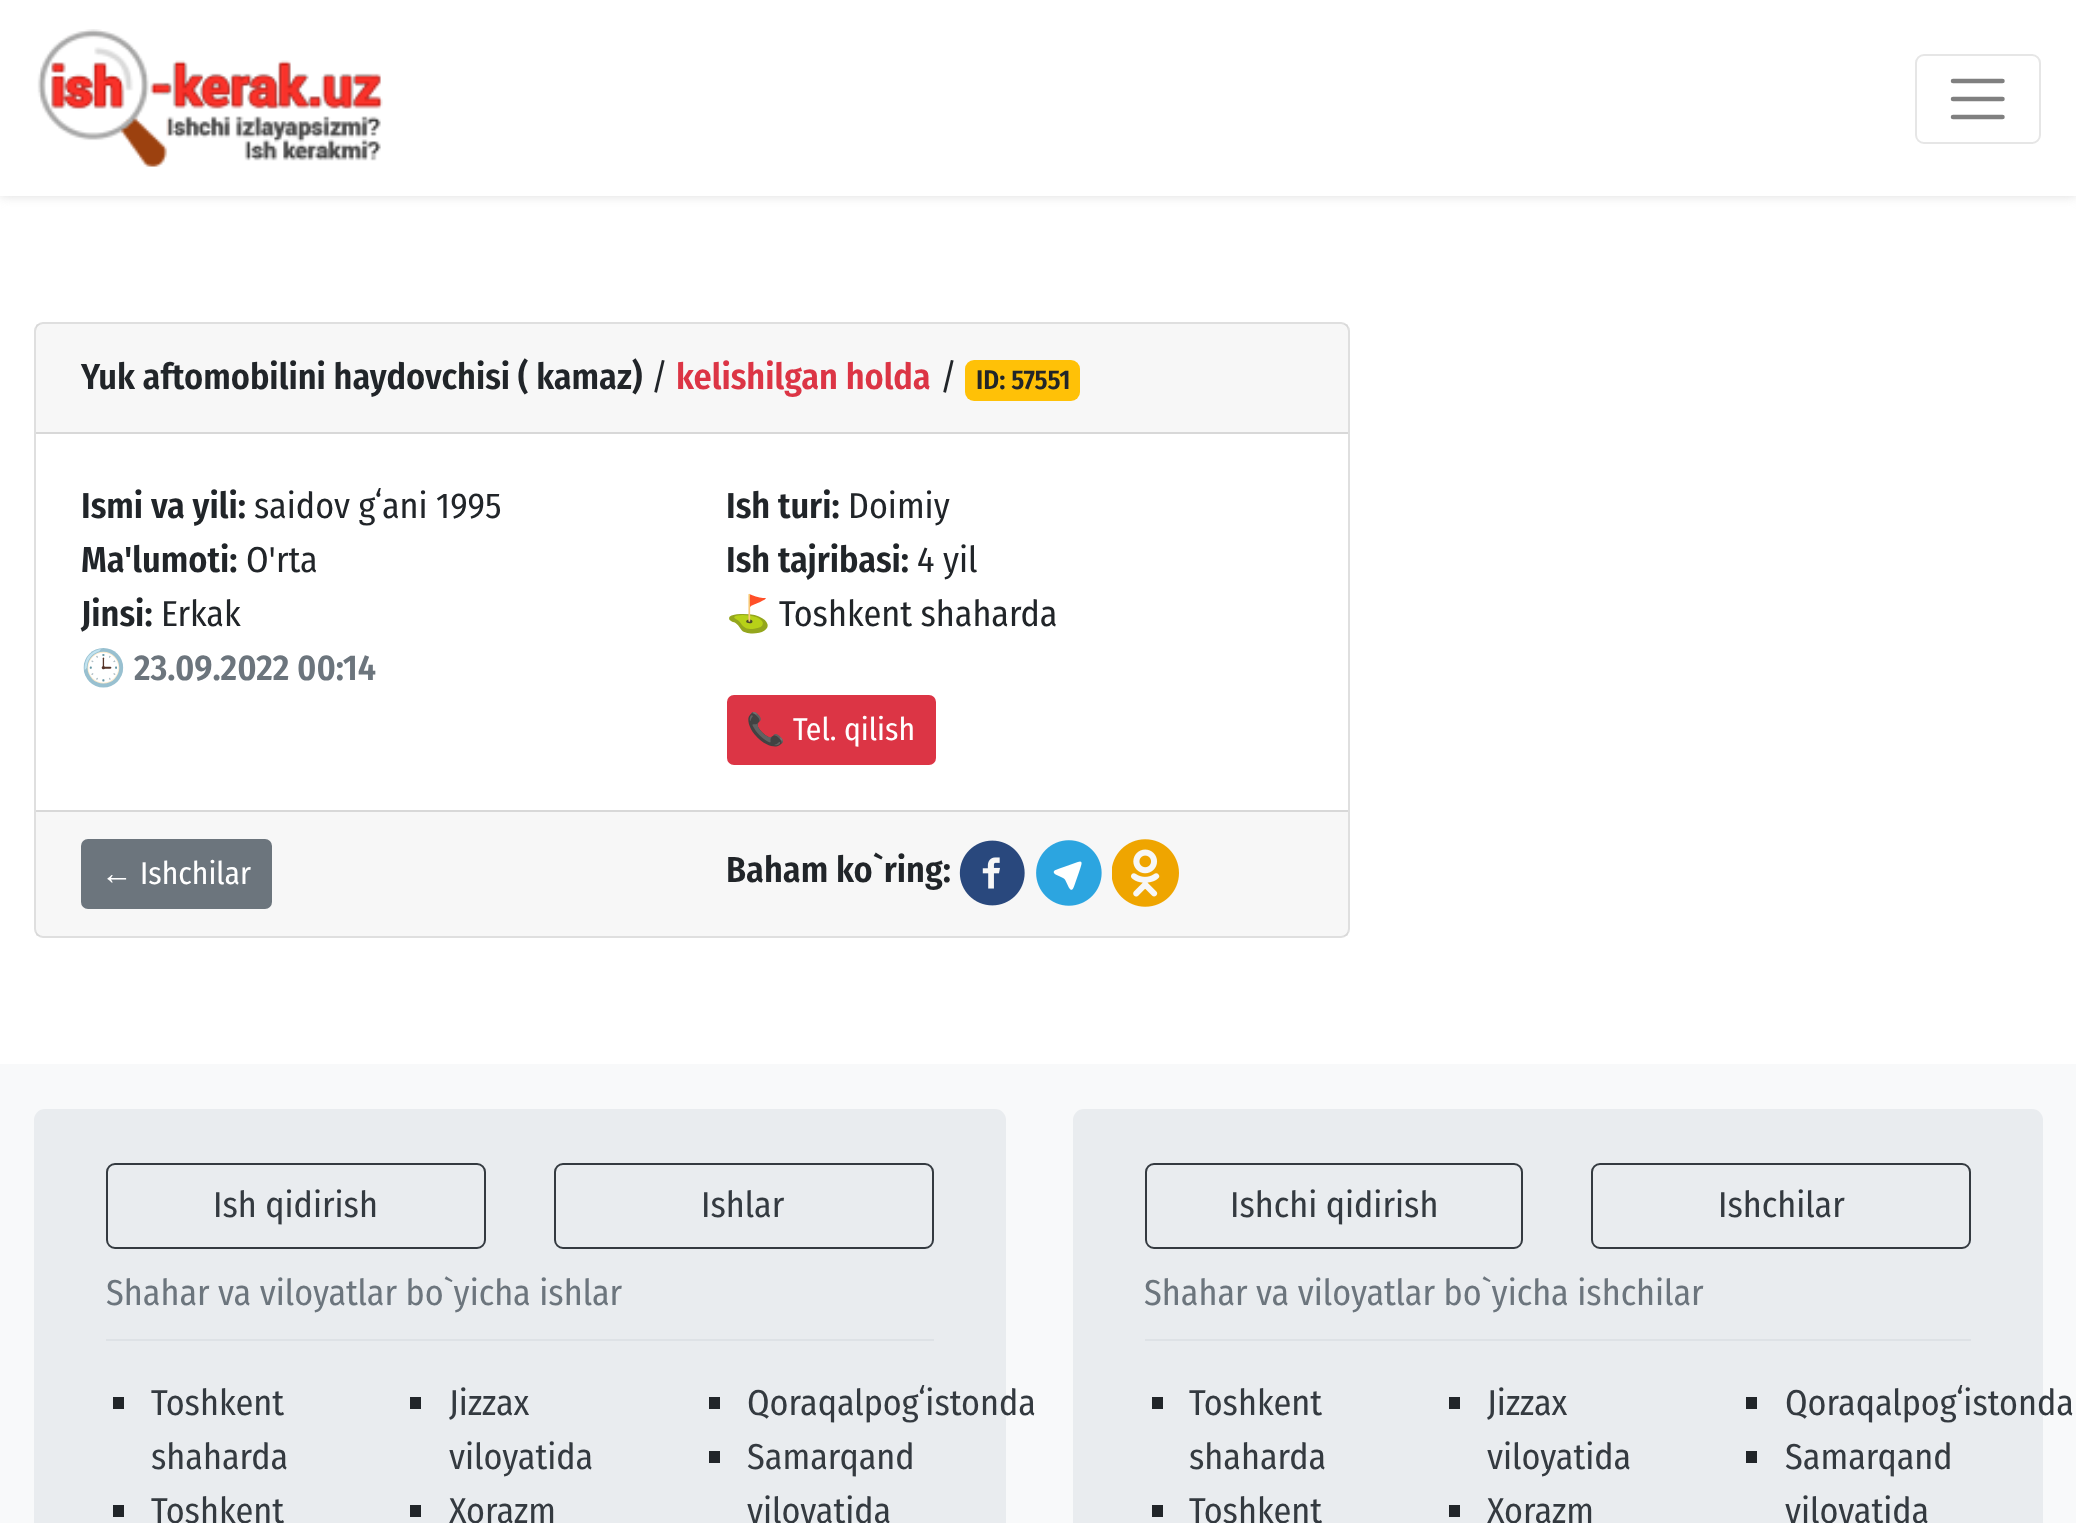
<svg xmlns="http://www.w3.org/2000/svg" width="2076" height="1523">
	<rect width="100%" height="100%" fill="#FFFFFF" />
	<rect x="0" y="0" width="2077" height="196" fill="#DDDDDD" filter="blur(5.5px)" />
	<rect x="0" y="0" width="2076" height="196" fill="#FFFFFF" />
	<image x="37" y="29" width="346" height="138" href="assets/img1.png" />
	<rect x="1916" y="55" width="124" height="88" rx="8" fill="none" stroke="#E6E6E6" stroke-width="2" />
	<path d="M1953 81H2002.5M1953 99H2002.5M1953 117H2002.5" fill="none" stroke="#808080" stroke-width="4.5" stroke-linecap="round" />
	<rect x="35" y="323" width="1314" height="614" rx="8" fill="none" stroke="#DFDFDF" stroke-width="2" />
	<rect x="36" y="324" width="1312" height="108" fill="#000000" fill-opacity="0.03" />
	<rect x="36" y="432" width="1312" height="2" fill="#D8D8D8" />
	<text x="81" y="389" font-family="Fira Sans Condensed" font-size="36" font-weight="600" fill="#212529">Yuk aftomobilini haydovchisi ( kamaz)</text>
	<text x="651" y="389" font-family="Fira Sans Condensed" font-size="36" fill="#212529">/</text>
	<text x="676" y="389" font-family="Fira Sans Condensed" font-size="36" font-weight="600" fill="#DC3545">kelishilgan holda</text>
	<text x="940" y="389" font-family="Fira Sans Condensed" font-size="36" fill="#212529">/</text>
	<rect x="965" y="360" width="115" height="41" rx="9" fill="#FFC107" />
	<text x="976" y="389" font-family="Fira Sans Condensed" font-size="27" font-weight="600" fill="#212529">ID: 57551</text>
	<text x="81" y="518" font-family="Fira Sans Condensed" font-size="36" font-weight="600" fill="#212529">Ismi va yili:</text>
	<text x="254" y="518" font-family="Fira Sans Condensed" font-size="36" fill="#212529">saidov gʻani 1995</text>
	<text x="81" y="572" font-family="Fira Sans Condensed" font-size="36" font-weight="600" fill="#212529">Ma'lumoti:</text>
	<text x="246" y="572" font-family="Fira Sans Condensed" font-size="36" fill="#212529">O'rta</text>
	<text x="81" y="626" font-family="Fira Sans Condensed" font-size="36" font-weight="600" fill="#212529">Jinsi:</text>
	<text x="161" y="626" font-family="Fira Sans Condensed" font-size="36" fill="#212529">Erkak</text>
	<text x="81" y="680" font-family="Noto Color Emoji" font-size="36" font-weight="700" fill="#6C757D">🕒</text>
	<text x="134" y="680" font-family="Fira Sans Condensed" font-size="36" font-weight="600" fill="#6C757D">23.09.2022 00:14</text>
	<text x="726" y="518" font-family="Fira Sans Condensed" font-size="36" font-weight="600" fill="#212529">Ish turi:</text>
	<text x="848" y="518" font-family="Fira Sans Condensed" font-size="36" fill="#212529">Doimiy</text>
	<text x="726" y="572" font-family="Fira Sans Condensed" font-size="36" font-weight="600" fill="#212529">Ish tajribasi:</text>
	<text x="917" y="572" font-family="Fira Sans Condensed" font-size="36" fill="#212529">4 yil</text>
	<text x="726" y="626" font-family="Noto Color Emoji" font-size="36" font-weight="700" fill="#212529">⛳</text>
	<text x="779" y="626" font-family="Fira Sans Condensed" font-size="36" fill="#212529">Toshkent shaharda</text>
	<rect x="728" y="696" width="207" height="68" rx="6" fill="#DC3545" stroke="#DC3545" stroke-width="2" />
	<text x="746" y="740" font-family="Noto Color Emoji" font-size="31.5" fill="#FFFFFF">📞</text>
	<text x="793" y="740" font-family="Fira Sans Condensed" font-size="31.5" fill="#FFFFFF">Tel. qilish</text>
	<rect x="36" y="812" width="1312" height="124" fill="#000000" fill-opacity="0.03" />
	<rect x="36" y="810" width="1312" height="2" fill="#D8D8D8" />
	<rect x="82" y="840" width="189" height="68" rx="6" fill="#6C757D" stroke="#6C757D" stroke-width="2" />
	<text x="101" y="884" font-family="Liberation Sans" font-size="31.5" fill="#FFFFFF">←</text>
	<text x="140" y="884" font-family="Fira Sans Condensed" font-size="31.5" fill="#FFFFFF">Ishchilar</text>
	<text x="726" y="882" font-family="Fira Sans Condensed" font-size="36" font-weight="600" fill="#212529">Baham ko`ring:</text>
	<image x="959" y="840" width="66" height="66" href="assets/img2.png" />
	<image x="1036" y="840" width="66" height="66" href="assets/img3.png" />
	<image x="1112" y="839" width="67" height="68" href="assets/img4.png" />
	<rect x="0" y="1064" width="2076" height="459" fill="#F8F9FA" />
	<rect x="34" y="1109" width="972" height="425" rx="11" fill="#E9ECEF" />
	<rect x="107" y="1164" width="378" height="84" rx="8" fill="none" stroke="#343A40" stroke-width="2" />
	<text x="213" y="1217" font-family="Fira Sans Condensed" font-size="36" fill="#343A40">Ish qidirish</text>
	<rect x="555" y="1164" width="378" height="84" rx="8" fill="none" stroke="#343A40" stroke-width="2" />
	<text x="701" y="1217" font-family="Fira Sans Condensed" font-size="36" fill="#343A40">Ishlar</text>
	<rect x="106" y="1339" width="828" height="2" fill="#DEE2E6" />
	<text x="106" y="1305" font-family="Fira Sans Condensed" font-size="36" fill="#6C757D">Shahar va viloyatlar bo`yicha ishlar</text>
	<rect x="113" y="1397" width="11" height="12" fill="#212529" />
	<g font-family="Fira Sans Condensed" font-size="36" fill="#343A40">
		<text x="151" y="1415">Toshkent</text>
		<text x="151" y="1469">shaharda</text>
	</g>
	<rect x="113" y="1505" width="11" height="12" fill="#212529" />
	<text x="151" y="1523" font-family="Fira Sans Condensed" font-size="36" fill="#343A40">Toshkent</text>
	<rect x="410" y="1397" width="11" height="12" fill="#212529" />
	<g font-family="Fira Sans Condensed" font-size="36" fill="#343A40">
		<text x="449" y="1415">Jizzax</text>
		<text x="449" y="1469">viloyatida</text>
	</g>
	<rect x="410" y="1505" width="11" height="12" fill="#212529" />
	<text x="449" y="1523" font-family="Fira Sans Condensed" font-size="36" fill="#343A40">Xorazm</text>
	<rect x="709" y="1397" width="11" height="12" fill="#212529" />
	<text x="747" y="1415" font-family="Fira Sans Condensed" font-size="36" fill="#343A40">Qoraqalpogʻistonda</text>
	<rect x="709" y="1451" width="11" height="12" fill="#212529" />
	<g font-family="Fira Sans Condensed" font-size="36" fill="#343A40">
		<text x="747" y="1469">Samarqand</text>
		<text x="747" y="1523">viloyatida</text>
	</g>
	<rect x="1073" y="1109" width="970" height="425" rx="11" fill="#E9ECEF" />
	<rect x="1146" y="1164" width="376" height="84" rx="8" fill="none" stroke="#343A40" stroke-width="2" />
	<text x="1230" y="1217" font-family="Fira Sans Condensed" font-size="36" fill="#343A40">Ishchi qidirish</text>
	<rect x="1592" y="1164" width="378" height="84" rx="8" fill="none" stroke="#343A40" stroke-width="2" />
	<text x="1718" y="1217" font-family="Fira Sans Condensed" font-size="36" fill="#343A40">Ishchilar</text>
	<rect x="1145" y="1339" width="826" height="2" fill="#DEE2E6" />
	<text x="1144" y="1305" font-family="Fira Sans Condensed" font-size="36" fill="#6C757D">Shahar va viloyatlar bo`yicha ishchilar</text>
	<rect x="1152" y="1397" width="11" height="12" fill="#212529" />
	<g font-family="Fira Sans Condensed" font-size="36" fill="#343A40">
		<text x="1189" y="1415">Toshkent</text>
		<text x="1189" y="1469">shaharda</text>
	</g>
	<rect x="1152" y="1505" width="11" height="12" fill="#212529" />
	<text x="1189" y="1523" font-family="Fira Sans Condensed" font-size="36" fill="#343A40">Toshkent</text>
	<rect x="1449" y="1397" width="11" height="12" fill="#212529" />
	<g font-family="Fira Sans Condensed" font-size="36" fill="#343A40">
		<text x="1487" y="1415">Jizzax</text>
		<text x="1487" y="1469">viloyatida</text>
	</g>
	<rect x="1449" y="1505" width="11" height="12" fill="#212529" />
	<text x="1487" y="1523" font-family="Fira Sans Condensed" font-size="36" fill="#343A40">Xorazm</text>
	<rect x="1746" y="1397" width="11" height="12" fill="#212529" />
	<text x="1785" y="1415" font-family="Fira Sans Condensed" font-size="36" fill="#343A40">Qoraqalpogʻistonda</text>
	<rect x="1746" y="1451" width="11" height="12" fill="#212529" />
	<g font-family="Fira Sans Condensed" font-size="36" fill="#343A40">
		<text x="1785" y="1469">Samarqand</text>
		<text x="1785" y="1523">viloyatida</text>
	</g>
</svg>
